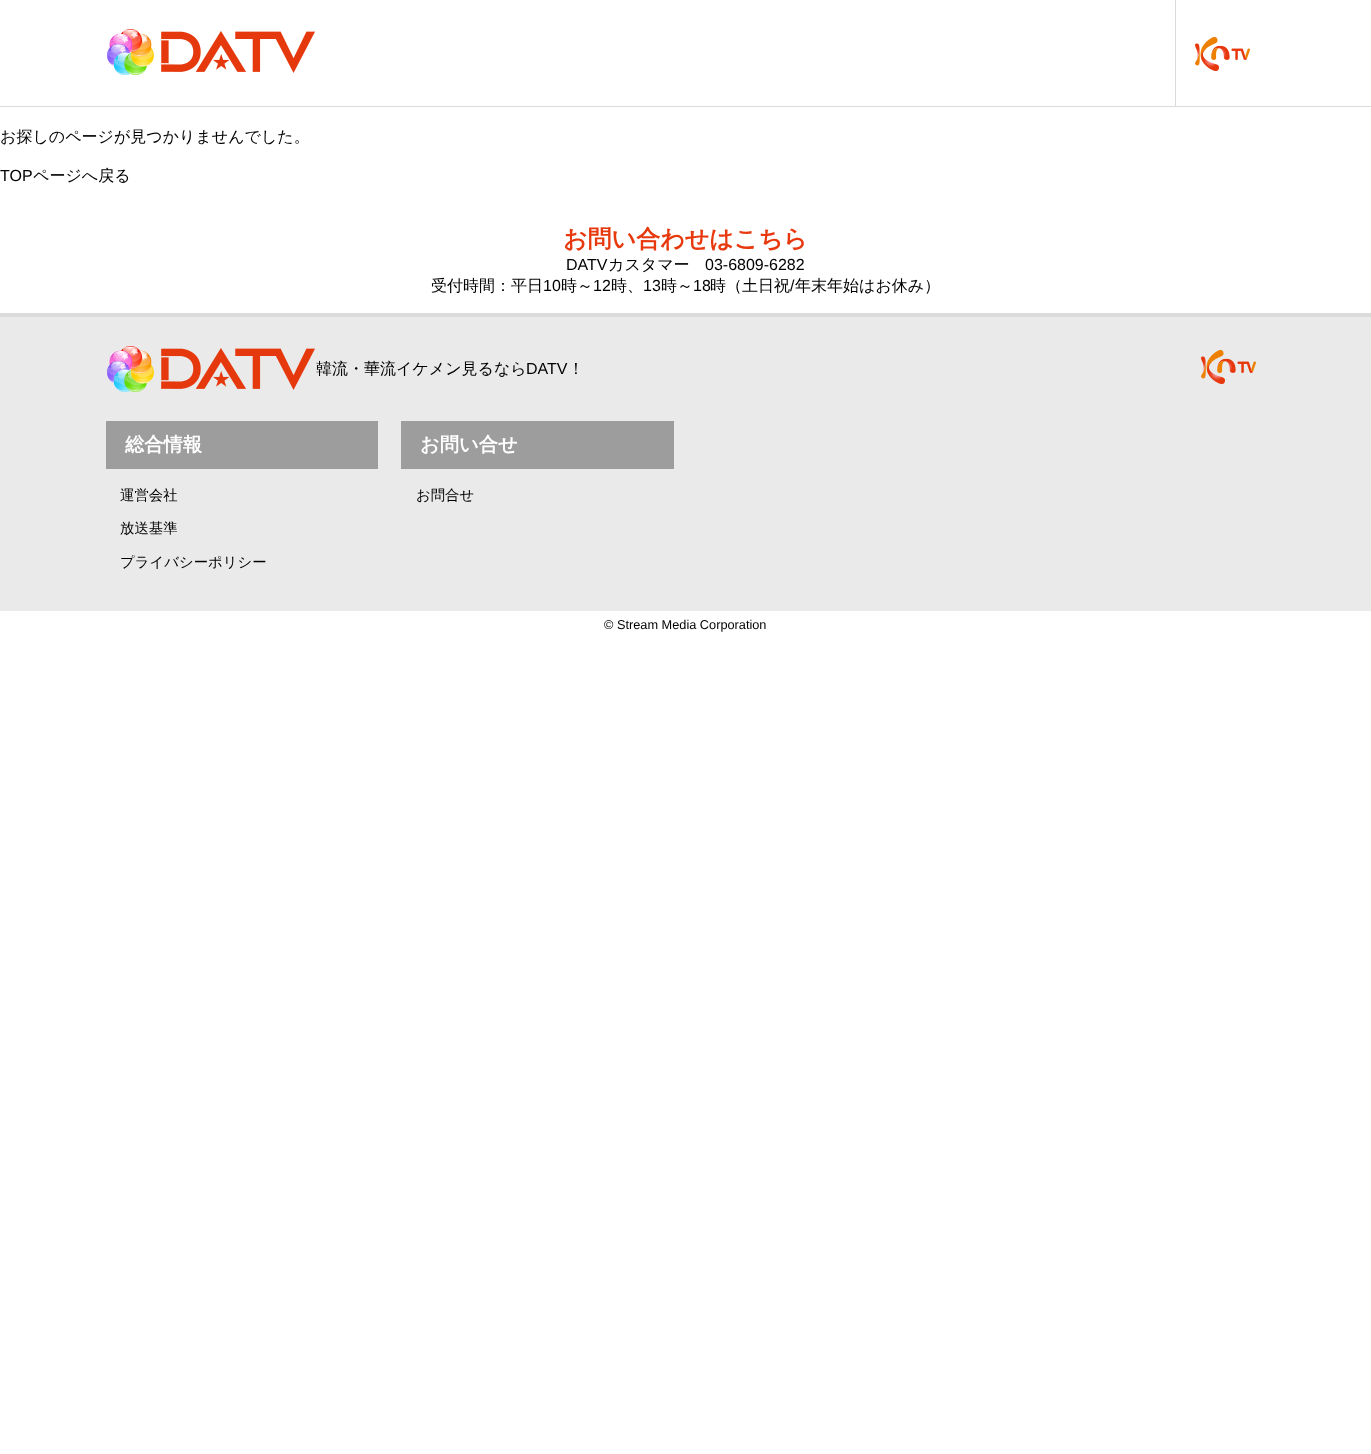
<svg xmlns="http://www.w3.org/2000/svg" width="1371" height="1454">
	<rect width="100%" height="100%" fill="#FFFFFF" />
	<rect x="0" y="106" width="1371" height="1" fill="#DBDBDB" />
	<image x="107" y="29" width="208" height="46" href="assets/img1.png" />
	<rect x="1175" y="0" width="1" height="106" fill="#DBDBDB" />
	<image x="1195" y="37" width="55" height="34" href="assets/img2.png" />
	<text x="0" y="142" font-family="WenQuanYi Zen Hei" font-size="16" font-weight="500" fill="#000000">お探しのページが見つかりませんでした。</text>
	<text x="0" y="181" font-family="Liberation Sans" font-size="16" fill="#000000">TOP</text>
	<text x="33" y="181" font-family="WenQuanYi Zen Hei" font-size="16" font-weight="500" fill="#000000">ページへ戻る</text>
	<text x="563" y="247" font-family="WenQuanYi Zen Hei" font-size="24" font-weight="700" fill="#E8390E">お問い合わせはこちら</text>
	<text x="566" y="270" font-family="Liberation Sans" font-size="16" fill="#000000">DATV</text>
	<text x="608" y="270" font-family="WenQuanYi Zen Hei" font-size="16" font-weight="500" fill="#000000">カスタマー</text>
	<text x="705" y="270" font-family="Liberation Sans" font-size="16" fill="#000000">03-6809-6282</text>
	<text x="431" y="291" font-family="WenQuanYi Zen Hei" font-size="16" font-weight="500" fill="#000000">受付時間：平日</text>
	<text x="543" y="291" font-family="Liberation Sans" font-size="16" fill="#000000">10</text>
	<text x="561" y="291" font-family="WenQuanYi Zen Hei" font-size="16" font-weight="500" fill="#000000">時～</text>
	<text x="593" y="291" font-family="Liberation Sans" font-size="16" fill="#000000">12</text>
	<text x="611" y="291" font-family="WenQuanYi Zen Hei" font-size="16" font-weight="500" fill="#000000">時、</text>
	<text x="643" y="291" font-family="Liberation Sans" font-size="16" fill="#000000">13</text>
	<text x="661" y="291" font-family="WenQuanYi Zen Hei" font-size="16" font-weight="500" fill="#000000">時～</text>
	<text x="693" y="291" font-family="Liberation Sans" font-size="16" fill="#000000">18</text>
	<text x="710" y="291" font-family="WenQuanYi Zen Hei" font-size="16" font-weight="500" fill="#000000">時（土日祝</text>
	<text x="790" y="291" font-family="Liberation Sans" font-size="16" fill="#000000">/</text>
	<text x="795" y="291" font-family="WenQuanYi Zen Hei" font-size="16" font-weight="500" fill="#000000">年末年始はお休み）</text>
	<rect x="0" y="313" width="1371" height="4" fill="#DBDBDB" />
	<rect x="0" y="317" width="1371" height="294" fill="#EAEAEA" />
	<image x="107" y="346" width="208" height="46" href="assets/img3.png" />
	<text x="316" y="374" font-family="WenQuanYi Zen Hei" font-size="16" font-weight="500" fill="#000000">韓流・華流イケメン見るなら</text>
	<text x="526" y="374" font-family="Liberation Sans" font-size="16" fill="#000000">DATV</text>
	<text x="568" y="374" font-family="WenQuanYi Zen Hei" font-size="16" font-weight="500" fill="#000000">！</text>
	<image x="1201" y="350" width="55" height="34" href="assets/img4.png" />
	<rect x="106" y="421" width="272" height="48" fill="#9D9D9D" />
	<text x="125" y="451" font-family="WenQuanYi Zen Hei" font-size="19.25" font-weight="700" fill="#FFFFFF">総合情報</text>
	<g font-family="WenQuanYi Zen Hei" font-size="14.4" font-weight="500" fill="#000000">
		<text x="120" y="500">運営会社</text>
		<text x="120" y="533">放送基準</text>
		<text x="120" y="567">プライバシーポリシー</text>
	</g>
	<rect x="401" y="421" width="273" height="48" fill="#9D9D9D" />
	<text x="420" y="451" font-family="WenQuanYi Zen Hei" font-size="19.25" font-weight="700" fill="#FFFFFF">お問い合せ</text>
	<text x="416" y="500" font-family="WenQuanYi Zen Hei" font-size="14.4" font-weight="500" fill="#000000">お問合せ</text>
	<text x="604" y="629" font-family="Liberation Sans" font-size="12.75" fill="#000000">© Stream Media Corporation</text>
</svg>
